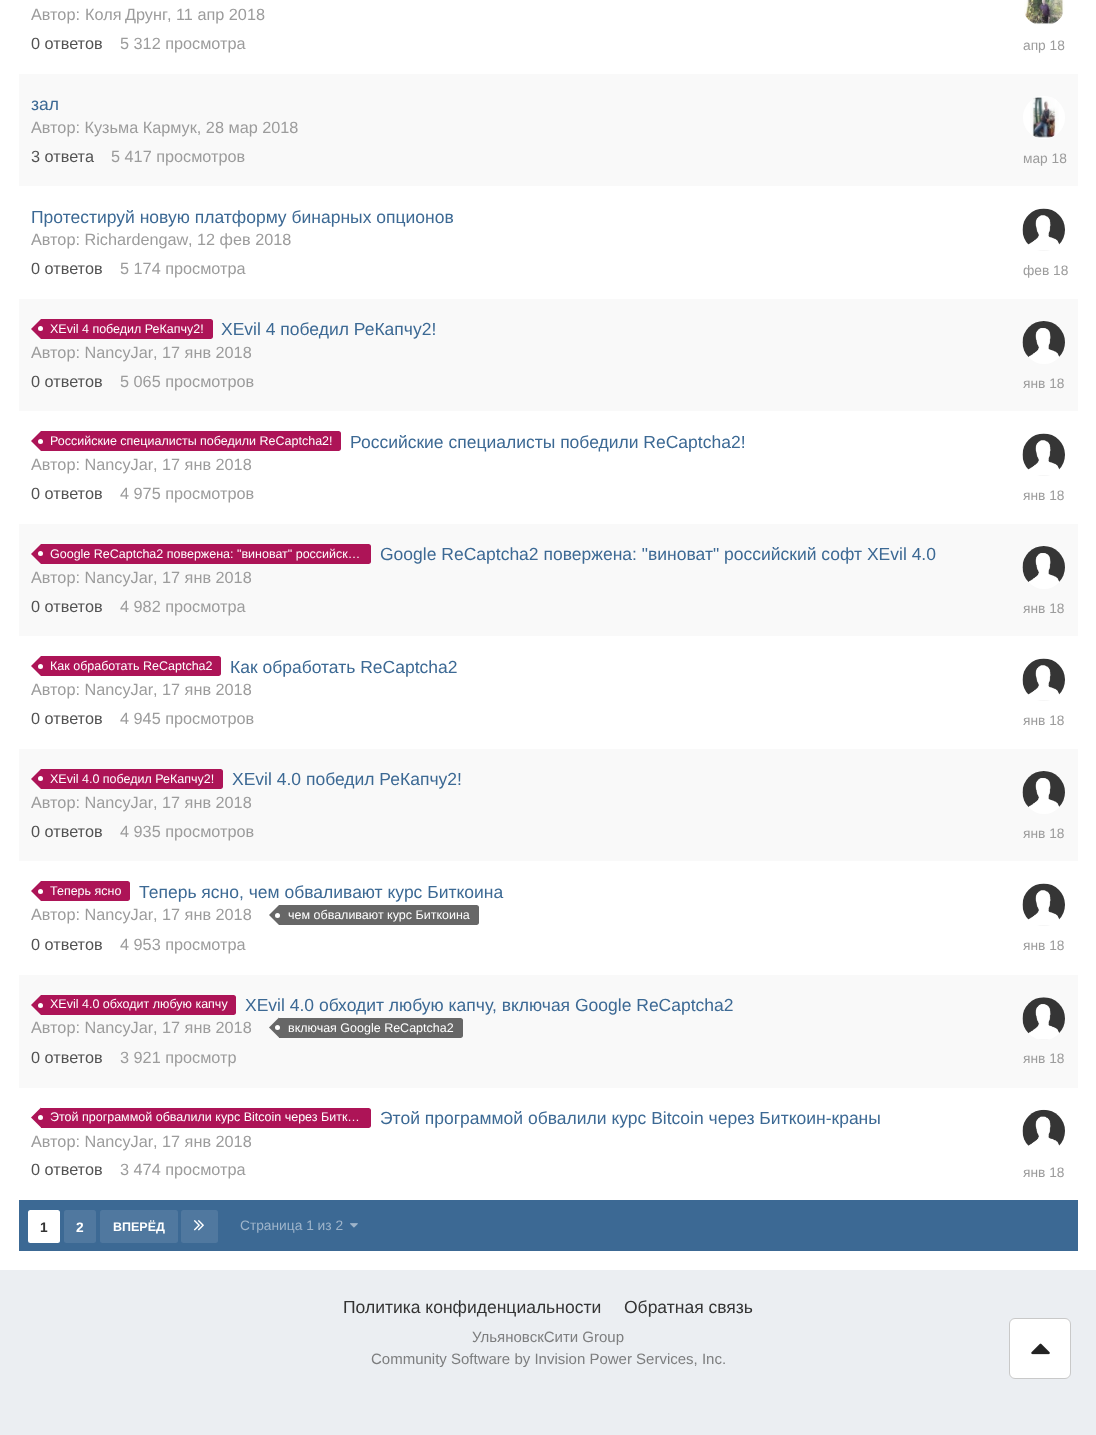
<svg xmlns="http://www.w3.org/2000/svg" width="1096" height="1435">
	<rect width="100%" height="100%" fill="#EBEEF2" />
	<rect x="0" y="0" width="1096" height="1270" fill="#FFFFFF" />
	<g font-family="Liberation Sans" font-size="16.25" fill="#9C9C9C">
		<text x="31" y="20">Автор:</text>
		<text x="85" y="20" word-spacing="-1">Коля Друнг</text>
		<text x="167" y="20">, 11 апр 2018</text>
	</g>
	<text x="31" y="49" font-family="Liberation Sans" font-size="16.25" fill="#525252">0 ответов</text>
	<text x="120" y="49" font-family="Liberation Sans" font-size="16.25" fill="#9C9C9C">5 312 просмотра</text>
	<image x="1024" y="0" width="41" height="25" href="assets/img1.png" />
	<text x="1023" y="50" font-family="Liberation Sans" font-size="13.75" fill="#9C9C9C">апр 18</text>
	<rect x="19" y="74" width="1059" height="112" fill="#F9F9F9" />
	<text x="31" y="110" font-family="Liberation Sans" font-size="17.5" fill="#3C6994">зал</text>
	<text x="31" y="133" font-family="Liberation Sans" font-size="16.25" fill="#9C9C9C">Автор: Кузьма Кармук, 28 мар 2018</text>
	<text x="31" y="162" font-family="Liberation Sans" font-size="16.25" fill="#525252">3 ответа</text>
	<text x="111" y="162" font-family="Liberation Sans" font-size="16.25" fill="#9C9C9C">5 417 просмотров</text>
	<rect x="1023" y="96" width="42" height="43" rx="21" fill="#FFFFFF" />
	<image x="1030" y="97" width="29" height="41" href="assets/img2.png" />
	<text x="1023" y="163" font-family="Liberation Sans" font-size="13.75" fill="#9C9C9C">мар 18</text>
	<text x="31" y="223" font-family="Liberation Sans" font-size="17.5" fill="#3C6994">Протестируй новую платформу бинарных опционов</text>
	<g font-family="Liberation Sans" font-size="16.25" fill="#9C9C9C">
		<text x="31" y="245">Автор: Richardengaw</text>
		<text x="188" y="245">, 12 фев 2018</text>
	</g>
	<text x="31" y="274" font-family="Liberation Sans" font-size="16.25" fill="#525252">0 ответов</text>
	<text x="120" y="274" font-family="Liberation Sans" font-size="16.25" fill="#9C9C9C">5 174 просмотра</text>
	<image x="1022" y="208" width="43" height="43" href="assets/img3.png" />
	<text x="1023" y="275" font-family="Liberation Sans" font-size="13.75" fill="#9C9C9C">фев 18</text>
	<rect x="19" y="299" width="1059" height="112" fill="#F9F9F9" />
	<path d="M41 319H210.5C212 319 213 320 213 321.5V336.5C213 338 212 339 210.5 339H41Z" fill="#AD1457" />
	<path d="M41 319V339L31 329Z" fill="#AD1457" />
	<text x="50" y="333" font-family="Liberation Sans" font-size="12.5" fill="#FFFFFF">XEvil 4 победил РеКапчу2!</text>
	<circle cx="40.5" cy="328.5" r="2.5" fill="#FFFFFF" />
	<text x="221" y="335" font-family="Liberation Sans" font-size="17.5" fill="#3C6994">XEvil 4 победил РеКапчу2!</text>
	<g font-family="Liberation Sans" font-size="16.25" fill="#9C9C9C">
		<text x="31" y="358">Автор: NancyJar</text>
		<text x="153" y="358">, 17 янв 2018</text>
	</g>
	<text x="31" y="387" font-family="Liberation Sans" font-size="16.25" fill="#525252">0 ответов</text>
	<text x="120" y="387" font-family="Liberation Sans" font-size="16.25" fill="#9C9C9C">5 065 просмотров</text>
	<rect x="1023" y="321" width="42" height="43" rx="21" fill="#FFFFFF" />
	<image x="1022" y="321" width="43" height="36" href="assets/img4.png" />
	<text x="1023" y="388" font-family="Liberation Sans" font-size="13.75" fill="#9C9C9C">янв 18</text>
	<path d="M41 431H338.5C340 431 341 432 341 433.5V448.5C341 450 340 451 338.5 451H41Z" fill="#AD1457" />
	<path d="M41 431V451L31 441Z" fill="#AD1457" />
	<text x="50" y="445" font-family="Liberation Sans" font-size="12.5" fill="#FFFFFF">Российские специалисты победили ReCaptcha2!</text>
	<circle cx="40.5" cy="441.5" r="2.5" fill="#FFFFFF" />
	<text x="350" y="448" font-family="Liberation Sans" font-size="17.5" fill="#3C6994">Российские специалисты победили ReCaptcha2!</text>
	<g font-family="Liberation Sans" font-size="16.25" fill="#9C9C9C">
		<text x="31" y="470">Автор: NancyJar</text>
		<text x="153" y="470">, 17 янв 2018</text>
	</g>
	<text x="31" y="499" font-family="Liberation Sans" font-size="16.25" fill="#525252">0 ответов</text>
	<text x="120" y="499" font-family="Liberation Sans" font-size="16.25" fill="#9C9C9C">4 975 просмотров</text>
	<image x="1022" y="433" width="43" height="43" href="assets/img5.png" />
	<text x="1023" y="500" font-family="Liberation Sans" font-size="13.75" fill="#9C9C9C">янв 18</text>
	<rect x="19" y="524" width="1059" height="112" fill="#F9F9F9" />
	<path d="M41 544H368.5C370 544 371 545 371 546.5V561.5C371 563 370 564 368.5 564H41Z" fill="#AD1457" />
	<path d="M41 544V564L31 554Z" fill="#AD1457" />
	<text x="50" y="558" font-family="Liberation Sans" font-size="12.5" fill="#FFFFFF">Google ReCaptcha2 повержена: "виноват" российск…</text>
	<circle cx="40.5" cy="553.5" r="2.5" fill="#FFFFFF" />
	<text x="380" y="560" font-family="Liberation Sans" font-size="17.5" fill="#3C6994">Google ReCaptcha2 повержена: "виноват" российский софт XEvil 4.0</text>
	<g font-family="Liberation Sans" font-size="16.25" fill="#9C9C9C">
		<text x="31" y="583">Автор: NancyJar</text>
		<text x="153" y="583">, 17 янв 2018</text>
	</g>
	<text x="31" y="612" font-family="Liberation Sans" font-size="16.25" fill="#525252">0 ответов</text>
	<text x="120" y="612" font-family="Liberation Sans" font-size="16.25" fill="#9C9C9C">4 982 просмотра</text>
	<rect x="1023" y="546" width="42" height="43" rx="21" fill="#FFFFFF" />
	<image x="1022" y="546" width="43" height="36" href="assets/img4.png" />
	<text x="1023" y="613" font-family="Liberation Sans" font-size="13.75" fill="#9C9C9C">янв 18</text>
	<path d="M41 656H218.5C220 656 221 657 221 658.5V673.5C221 675 220 676 218.5 676H41Z" fill="#AD1457" />
	<path d="M41 656V676L31 666Z" fill="#AD1457" />
	<text x="50" y="670" font-family="Liberation Sans" font-size="12.5" fill="#FFFFFF">Как обработать ReCaptcha2</text>
	<circle cx="40.5" cy="666.5" r="2.5" fill="#FFFFFF" />
	<text x="230" y="673" font-family="Liberation Sans" font-size="17.5" fill="#3C6994">Как обработать ReCaptcha2</text>
	<g font-family="Liberation Sans" font-size="16.25" fill="#9C9C9C">
		<text x="31" y="695">Автор: NancyJar</text>
		<text x="153" y="695">, 17 янв 2018</text>
	</g>
	<text x="31" y="724" font-family="Liberation Sans" font-size="16.25" fill="#525252">0 ответов</text>
	<text x="120" y="724" font-family="Liberation Sans" font-size="16.25" fill="#9C9C9C">4 945 просмотров</text>
	<image x="1022" y="658" width="43" height="43" href="assets/img6.png" />
	<text x="1023" y="725" font-family="Liberation Sans" font-size="13.75" fill="#9C9C9C">янв 18</text>
	<rect x="19" y="749" width="1059" height="112" fill="#F9F9F9" />
	<path d="M41 769H220.5C222 769 223 770 223 771.5V786.5C223 788 222 789 220.5 789H41Z" fill="#AD1457" />
	<path d="M41 769V789L31 779Z" fill="#AD1457" />
	<text x="50" y="783" font-family="Liberation Sans" font-size="12.5" fill="#FFFFFF">XEvil 4.0 победил РеКапчу2!</text>
	<circle cx="40.5" cy="778.5" r="2.5" fill="#FFFFFF" />
	<text x="232" y="785" font-family="Liberation Sans" font-size="17.5" fill="#3C6994">XEvil 4.0 победил РеКапчу2!</text>
	<g font-family="Liberation Sans" font-size="16.25" fill="#9C9C9C">
		<text x="31" y="808">Автор: NancyJar</text>
		<text x="153" y="808">, 17 янв 2018</text>
	</g>
	<text x="31" y="837" font-family="Liberation Sans" font-size="16.25" fill="#525252">0 ответов</text>
	<text x="120" y="837" font-family="Liberation Sans" font-size="16.25" fill="#9C9C9C">4 935 просмотров</text>
	<rect x="1023" y="771" width="42" height="43" rx="21" fill="#FFFFFF" />
	<image x="1022" y="771" width="43" height="36" href="assets/img4.png" />
	<text x="1023" y="838" font-family="Liberation Sans" font-size="13.75" fill="#9C9C9C">янв 18</text>
	<path d="M41 881H127.5C129 881 130 882 130 883.5V898.5C130 900 129 901 127.5 901H41Z" fill="#AD1457" />
	<path d="M41 881V901L31 891Z" fill="#AD1457" />
	<text x="50" y="895" font-family="Liberation Sans" font-size="12.5" fill="#FFFFFF">Теперь ясно</text>
	<circle cx="40.5" cy="891.5" r="2.5" fill="#FFFFFF" />
	<text x="139" y="898" font-family="Liberation Sans" font-size="17.5" fill="#3C6994">Теперь ясно, чем обваливают курс Биткоина</text>
	<g font-family="Liberation Sans" font-size="16.25" fill="#9C9C9C">
		<text x="31" y="920">Автор: NancyJar</text>
		<text x="153" y="920">, 17 янв 2018</text>
	</g>
	<path d="M279 905H476.5C478 905 479 906 479 907.5V922.5C479 924 478 925 476.5 925H279Z" fill="#676767" />
	<path d="M279 905V925L269 915Z" fill="#676767" />
	<text x="288" y="919" font-family="Liberation Sans" font-size="12.5" fill="#FFFFFF">чем обваливают курс Биткоина</text>
	<circle cx="277.5" cy="915.5" r="2.5" fill="#FFFFFF" />
	<text x="31" y="950" font-family="Liberation Sans" font-size="16.25" fill="#525252">0 ответов</text>
	<text x="120" y="950" font-family="Liberation Sans" font-size="16.25" fill="#9C9C9C">4 953 просмотра</text>
	<image x="1022" y="883" width="43" height="43" href="assets/img6.png" />
	<text x="1023" y="950" font-family="Liberation Sans" font-size="13.75" fill="#9C9C9C">янв 18</text>
	<rect x="19" y="975" width="1059" height="113" fill="#F9F9F9" />
	<path d="M41 995H233.5C235 995 236 996 236 997.5V1012.5C236 1014 235 1015 233.5 1015H41Z" fill="#AD1457" />
	<path d="M41 995V1015L31 1005Z" fill="#AD1457" />
	<text x="50" y="1008" font-family="Liberation Sans" font-size="12.5" fill="#FFFFFF">XEvil 4.0 обходит любую капчу</text>
	<circle cx="40.5" cy="1005.5" r="2.5" fill="#FFFFFF" />
	<text x="245" y="1011" font-family="Liberation Sans" font-size="17.5" fill="#3C6994">XEvil 4.0 обходит любую капчу, включая Google ReCaptcha2</text>
	<g font-family="Liberation Sans" font-size="16.25" fill="#9C9C9C">
		<text x="31" y="1033">Автор: NancyJar</text>
		<text x="153" y="1033">, 17 янв 2018</text>
	</g>
	<path d="M279 1018H460.5C462 1018 463 1019 463 1020.5V1035.5C463 1037 462 1038 460.5 1038H279Z" fill="#676767" />
	<path d="M279 1017.5V1037.5L269 1027.5Z" fill="#676767" />
	<text x="288" y="1032" font-family="Liberation Sans" font-size="12.5" fill="#FFFFFF">включая Google ReCaptcha2</text>
	<circle cx="277.5" cy="1027.5" r="2.5" fill="#FFFFFF" />
	<text x="31" y="1063" font-family="Liberation Sans" font-size="16.25" fill="#525252">0 ответов</text>
	<text x="120" y="1063" font-family="Liberation Sans" font-size="16.25" fill="#9C9C9C">3 921 просмотр</text>
	<circle cx="1044" cy="1019" r="21" fill="#FFFFFF" />
	<image x="1022" y="997" width="43" height="43" href="assets/img7.png" />
	<text x="1023" y="1063" font-family="Liberation Sans" font-size="13.75" fill="#9C9C9C">янв 18</text>
	<path d="M41 1108H368.5C370 1108 371 1109 371 1110.5V1125.5C371 1127 370 1128 368.5 1128H41Z" fill="#AD1457" />
	<path d="M41 1107.5V1127.5L31 1117.5Z" fill="#AD1457" />
	<text x="50" y="1121" font-family="Liberation Sans" font-size="12.5" fill="#FFFFFF">Этой программой обвалили курс Bitcoin через Битк…</text>
	<circle cx="40.5" cy="1117.5" r="2.5" fill="#FFFFFF" />
	<text x="380" y="1124" font-family="Liberation Sans" font-size="17.5" fill="#3C6994">Этой программой обвалили курс Bitcoin через Биткоин-краны</text>
	<g font-family="Liberation Sans" font-size="16.25" fill="#9C9C9C">
		<text x="31" y="1147">Автор: NancyJar</text>
		<text x="153" y="1147">, 17 янв 2018</text>
	</g>
	<text x="31" y="1175" font-family="Liberation Sans" font-size="16.25" fill="#525252">0 ответов</text>
	<text x="120" y="1175" font-family="Liberation Sans" font-size="16.25" fill="#9C9C9C">3 474 просмотра</text>
	<image x="1022" y="1109" width="43" height="37" href="assets/img8.png" />
	<text x="1023" y="1177" font-family="Liberation Sans" font-size="13.75" fill="#9C9C9C">янв 18</text>
	<rect x="19" y="1200" width="1059" height="51" fill="#3C6994" />
	<rect x="28" y="1210" width="32" height="33" rx="2.5" fill="#FFFFFF" />
	<text x="40" y="1232" font-family="Liberation Sans" font-size="13.75" font-weight="700" fill="#333333">1</text>
	<rect x="64" y="1210" width="32" height="33" rx="2.5" fill="#50789F" />
	<text x="76" y="1232" font-family="Liberation Sans" font-size="13.75" font-weight="700" fill="#FFFFFF">2</text>
	<rect x="100" y="1210" width="78" height="33" rx="2.5" fill="#50789F" />
	<text x="113" y="1231" font-family="Liberation Sans" font-size="12.5" font-weight="700" fill="#FFFFFF">ВПЕРЁД</text>
	<rect x="181" y="1210" width="37" height="33" rx="2.5" fill="#50789F" />
	<image x="193" y="1220" width="11" height="11" href="assets/img9.png" />
	<text x="240" y="1230" font-family="Liberation Sans" font-size="13.75" fill="#9EB4CA">Страница 1 из 2</text>
	<image x="350" y="1223" width="8" height="5" href="assets/img10.png" />
	<rect x="1009.5" y="1318.5" width="61" height="60" rx="5.5" fill="#FFFFFF" stroke="#C9C9C9" />
	<image x="1031" y="1343" width="19" height="12" href="assets/img11.png" />
	<g font-family="Liberation Sans" font-size="17.5" fill="#333333">
		<text x="343" y="1313">Политика конфиденциальности</text>
		<text x="624" y="1313">Обратная связь</text>
	</g>
	<g font-family="Liberation Sans" font-size="15" fill="#7D7E7F">
		<text x="472" y="1342">УльяновскСити Group</text>
		<text x="371" y="1364">Community Software by Invision Power Services, Inc.</text>
	</g>
</svg>
